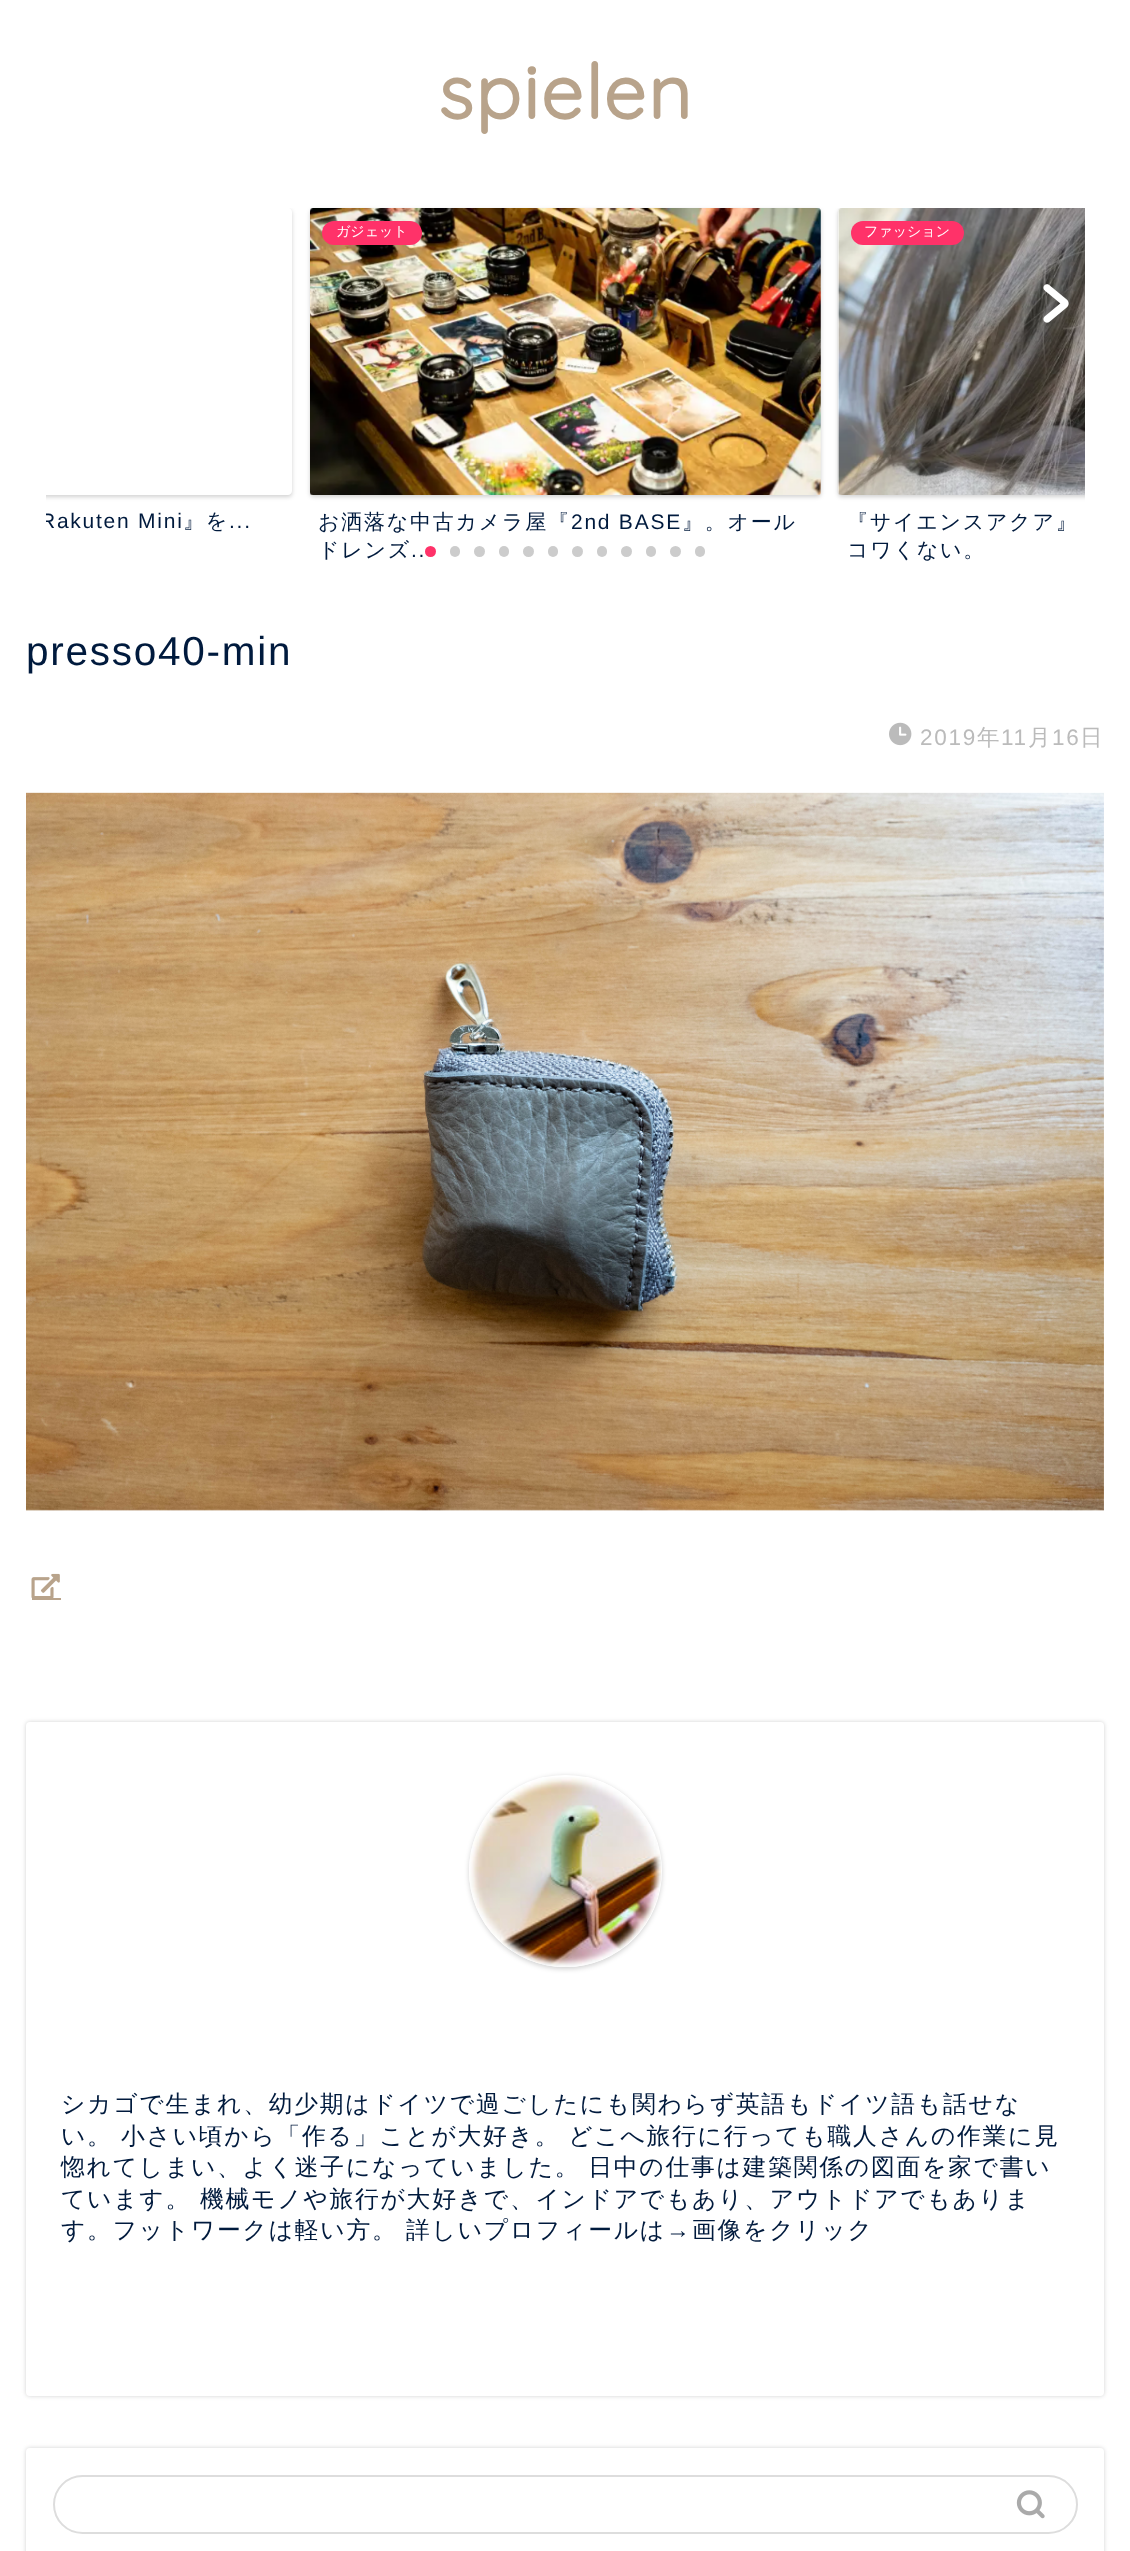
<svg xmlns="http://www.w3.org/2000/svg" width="1130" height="2551">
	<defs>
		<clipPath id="clip1"><rect x="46" y="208" width="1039" height="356" /></clipPath>
		<clipPath id="clip2"><rect x="46" y="208" width="1039" height="356" /></clipPath>
	</defs>
	<rect width="100%" height="100%" fill="#FFFFFF" />
	<text x="438" y="119" font-family="Quicksand" font-size="75.5" font-weight="700" letter-spacing="1.75" fill="#B8A38B">spielen</text>
	<g clip-path="url(#clip1)">
		<rect x="-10" y="210" width="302" height="287" rx="4" fill="#000000" fill-opacity="0.18" filter="blur(2px)" />
	</g>
	<path d="M46 208H288C290 208 292 210 292 212V491C292 493 290 495 288 495H46Z" fill="#FFFFFF" />
	<g clip-path="url(#clip2)">
		<text x="40" y="528" font-family="Liberation Sans" font-size="21" letter-spacing="1.75" fill="#001A3D">Rakuten Mini</text>
	</g>
	<text x="183" y="528" font-family="WenQuanYi Zen Hei" font-size="21" font-weight="500" letter-spacing="1.75" fill="#001A3D">』を</text>
	<text x="229" y="528" font-family="Liberation Sans" font-size="21" letter-spacing="1.75" fill="#001A3D">...</text>
	<rect x="310" y="210" width="511" height="287" rx="4" fill="#000000" fill-opacity="0.18" filter="blur(2px)" />
	<image x="310" y="208" width="511" height="287" href="assets/img1.png" />
	<rect x="322" y="221" width="100" height="24" rx="12" fill="#FF3269" />
	<text x="336" y="236" font-family="WenQuanYi Zen Hei" font-size="14" font-weight="500" fill="#FFFFFF">ガジェット</text>
	<text x="318" y="529" font-family="WenQuanYi Zen Hei" font-size="21" font-weight="500" letter-spacing="1.75" fill="#001A3D">お洒落な中古カメラ屋『</text>
	<text x="571" y="529" font-family="Liberation Sans" font-size="21" letter-spacing="1.75" fill="#001A3D">2nd BASE</text>
	<g font-family="WenQuanYi Zen Hei" font-size="21" font-weight="500" letter-spacing="1.75" fill="#001A3D">
		<text x="682" y="529">』。オール</text>
		<text x="318" y="557">ドレンズ</text>
	</g>
	<text x="411" y="557" font-family="Liberation Sans" font-size="21" letter-spacing="1.75" fill="#001A3D">..</text>
	<g clip-path="url(#clip1)">
		<rect x="838" y="210" width="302" height="287" rx="4" fill="#000000" fill-opacity="0.18" filter="blur(2px)" />
	</g>
	<path d="M842 208H1085V495H842C840 495 838 493 838 491V212C838 210 840 208 842 208Z" fill="#FFFFFF" />
	<image x="837" y="208" width="248" height="287" href="assets/img2.png" />
	<rect x="851" y="221" width="113" height="24" rx="12" fill="#FF3269" />
	<text x="864" y="236" font-family="WenQuanYi Zen Hei" font-size="14" font-weight="500" fill="#FFFFFF">ファッション</text>
	<g font-family="WenQuanYi Zen Hei" font-size="21" font-weight="500" letter-spacing="1.75" fill="#001A3D">
		<text x="847" y="529">『サイエンスアクア』</text>
		<text x="847" y="557">コワくない。</text>
	</g>
	<image x="1043" y="284" width="26" height="39" href="assets/img3.png" />
	<circle cx="430.5" cy="551.5" r="5.5" fill="#FF3269" />
	<rect x="450" y="546" width="10" height="11" rx="5" fill="#CCCCCC" />
	<circle cx="479.5" cy="551.5" r="5.5" fill="#CCCCCC" />
	<rect x="499" y="546" width="10" height="11" rx="5" fill="#CCCCCC" />
	<circle cx="528.5" cy="551.5" r="5.5" fill="#CCCCCC" />
	<rect x="548" y="546" width="10" height="11" rx="5" fill="#CCCCCC" />
	<circle cx="577.5" cy="551.5" r="5.5" fill="#CCCCCC" />
	<rect x="597" y="546" width="10" height="11" rx="5" fill="#CCCCCC" />
	<circle cx="626.5" cy="551.5" r="5.5" fill="#CCCCCC" />
	<rect x="646" y="546" width="10" height="11" rx="5" fill="#CCCCCC" />
	<circle cx="675.5" cy="551.5" r="5.5" fill="#CCCCCC" />
	<rect x="695" y="546" width="10" height="11" rx="5" fill="#CCCCCC" />
	<text x="26" y="665" font-family="Liberation Sans" font-size="40.5" letter-spacing="1.75" fill="#001A3D">presso40-min</text>
	<image x="889" y="722" width="23" height="24" href="assets/img4.png" />
	<text x="920" y="745" font-family="Liberation Sans" font-size="22.5" letter-spacing="1.75" fill="#BBBBBB">2019</text>
	<text x="977" y="745" font-family="WenQuanYi Zen Hei" font-size="22.5" font-weight="500" letter-spacing="1.75" fill="#BBBBBB">年</text>
	<text x="1001" y="745" font-family="Liberation Sans" font-size="22.5" letter-spacing="1.75" fill="#BBBBBB">11</text>
	<text x="1028" y="745" font-family="WenQuanYi Zen Hei" font-size="22.5" font-weight="500" letter-spacing="1.75" fill="#BBBBBB">月</text>
	<text x="1052" y="745" font-family="Liberation Sans" font-size="22.5" letter-spacing="1.75" fill="#BBBBBB">16</text>
	<text x="1080" y="745" font-family="WenQuanYi Zen Hei" font-size="22.5" font-weight="500" letter-spacing="1.75" fill="#BBBBBB">日</text>
	<image x="26" y="792" width="1078" height="719" href="assets/img5.png" />
	<image x="31" y="1573" width="29" height="25" href="assets/img6.png" />
	<rect x="32" y="1598" width="29" height="2" fill="#B8A38B" />
	<rect x="26" y="1722" width="1078" height="674" rx="4" fill="#000000" fill-opacity="0.18" filter="blur(2px)" />
	<rect x="26" y="1722" width="1078" height="674" rx="4" fill="#FFFFFF" />
	<rect x="469" y="1776" width="193" height="193" rx="96.5" fill="#000000" fill-opacity="0.18" filter="blur(2.5px)" />
	<rect x="469" y="1775" width="193" height="192" rx="96" fill="#FFFFFF" />
	<image x="469" y="1777" width="193" height="190" href="assets/img7.png" />
	<g font-family="WenQuanYi Zen Hei" font-size="23.8" font-weight="500" letter-spacing="1.75" fill="#001A3D">
		<text x="61" y="2112">シカゴで生まれ、幼少期はドイツで過ごしたにも関わらず英語もドイツ語も話せな</text>
		<text x="61" y="2144">い。</text>
		<text x="121" y="2144" word-spacing="-1">小さい頃から「作る」ことが大好き。 どこへ旅行に行っても職人さんの作業に見</text>
		<text x="61" y="2175" word-spacing="-1">惚れてしまい、よく迷子になっていました。 日中の仕事は建築関係の図面を家で書い</text>
		<text x="61" y="2207">ています。</text>
		<text x="200" y="2207">機械モノや旅行が大好きで、インドアでもあり、アウトドアでもありま</text>
		<text x="61" y="2238">す。フットワークは軽い方。</text>
		<text x="406" y="2238">詳しいプロフィールは</text>
	</g>
	<text x="666" y="2238" font-family="Liberation Sans" font-size="23.8" letter-spacing="1.75" fill="#001A3D">→</text>
	<text x="692" y="2238" font-family="WenQuanYi Zen Hei" font-size="23.8" font-weight="500" letter-spacing="1.75" fill="#001A3D">画像をクリック</text>
	<rect x="26" y="2448" width="1078" height="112" rx="4" fill="#000000" fill-opacity="0.18" filter="blur(2px)" />
	<rect x="26" y="2448" width="1078" height="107" rx="4" fill="#FFFFFF" />
	<rect x="54" y="2476" width="1023" height="57" rx="28.5" fill="none" stroke="#DDDDDD" stroke-width="2" />
	<image x="1016" y="2490" width="29" height="29" href="assets/img8.png" />
</svg>
